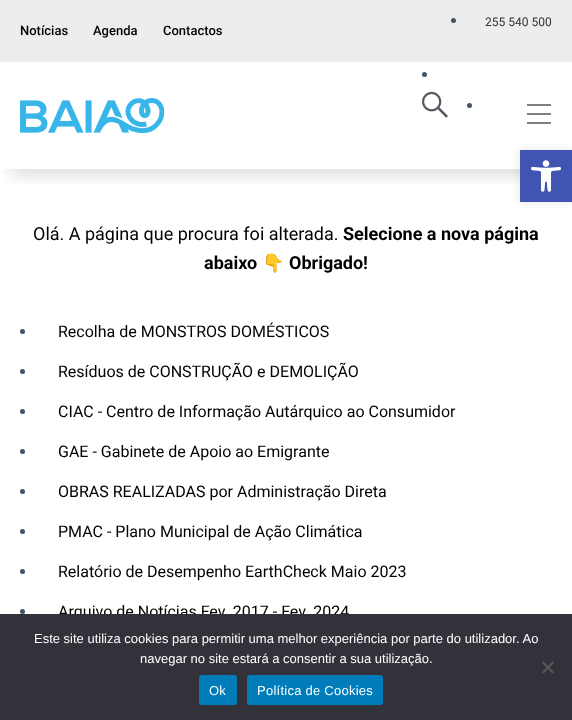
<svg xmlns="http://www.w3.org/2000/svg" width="572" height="720">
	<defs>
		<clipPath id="clip1"><rect x="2" y="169" width="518" height="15" /></clipPath>
	</defs>
	<rect width="100%" height="100%" fill="#FFFFFF" />
	<rect x="0" y="0" width="572" height="62" fill="#EDEDED" />
	<circle cx="453.5" cy="20.5" r="2.5" fill="#425466" />
	<text x="485" y="26" font-family="Roboto" font-size="12" fill="#333333">255 540 500</text>
	<g font-family="Roboto" font-size="13" font-weight="500" fill="#000000">
		<text x="20" y="35">Notícias</text>
		<text x="93" y="35">Agenda</text>
		<text x="163" y="35">Contactos</text>
	</g>
	<g clip-path="url(#clip1)">
		<rect x="10" y="87" width="552" height="87" fill="#000000" fill-opacity="0.15" filter="blur(9px)" />
	</g>
	<image x="20" y="98" width="144" height="35" href="assets/img1.png" />
	<circle cx="424.5" cy="74.5" r="2.5" fill="#425466" />
	<image x="422" y="91" width="26" height="27" href="assets/img2.png" />
	<circle cx="469.5" cy="105.5" r="2.5" fill="#425466" />
	<path d="M551 114H527M551 105H527M527 123H551" fill="none" stroke="#000000" stroke-width="1.2" />
	<rect x="520" y="150" width="52" height="52" fill="#000000" fill-opacity="0.1" filter="blur(5px)" />
	<rect x="520" y="150" width="52" height="52" fill="#4054B2" />
	<image x="531" y="160" width="30" height="32" href="assets/img3.png" />
	<text x="33" y="240" font-family="Roboto" font-size="18" fill="#000000">Olá. A página que procura foi alterada.</text>
	<g font-family="Roboto" font-size="18" font-weight="700" fill="#000000">
		<text x="343" y="240">Selecione a nova página</text>
		<text x="204" y="269">abaixo</text>
	</g>
	<text x="262" y="269" font-family="Noto Color Emoji" font-size="18" font-weight="700" fill="#000000">👇</text>
	<text x="289" y="269" font-family="Roboto" font-size="18" font-weight="700" fill="#000000">Obrigado!</text>
	<circle cx="22.5" cy="331.5" r="2.5" fill="#425466" />
	<text x="58" y="337" font-family="Roboto" font-size="16" fill="#000000">Recolha de MONSTROS DOMÉSTICOS</text>
	<circle cx="22.5" cy="371.5" r="2.5" fill="#425466" />
	<text x="58" y="377" font-family="Roboto" font-size="16" fill="#000000">Resíduos de CONSTRUÇÃO e DEMOLIÇÃO</text>
	<circle cx="22.5" cy="411.5" r="2.5" fill="#425466" />
	<text x="58" y="417" font-family="Roboto" font-size="16" fill="#000000">CIAC - Centro de Informação Autárquico ao Consumidor</text>
	<circle cx="22.5" cy="451.5" r="2.5" fill="#425466" />
	<text x="58" y="457" font-family="Roboto" font-size="16" fill="#000000">GAE - Gabinete de Apoio ao Emigrante</text>
	<circle cx="22.5" cy="491.5" r="2.5" fill="#425466" />
	<text x="58" y="497" font-family="Roboto" font-size="16" fill="#000000">OBRAS REALIZADAS por Administração Direta</text>
	<circle cx="22.5" cy="531.5" r="2.5" fill="#425466" />
	<text x="58" y="537" font-family="Roboto" font-size="16" fill="#000000">PMAC - Plano Municipal de Ação Climática</text>
	<circle cx="22.5" cy="571.5" r="2.5" fill="#425466" />
	<text x="58" y="577" font-family="Roboto" font-size="16" fill="#000000">Relatório de Desempenho EarthCheck Maio 2023</text>
	<circle cx="22.5" cy="611.5" r="2.5" fill="#425466" />
	<text x="58" y="617" font-family="Roboto" font-size="16" fill="#000000">Arquivo de Notícias Fev. 2017 - Fev. 2024</text>
	<rect x="0" y="614" width="572" height="106" fill="#32323A" />
	<g font-family="Liberation Sans" font-size="13" fill="#FFFFFF">
		<text x="34" y="643">Este site utiliza cookies para permitir uma melhor experiência por parte do utilizador. Ao</text>
		<text x="140" y="663">navegar no site estará a consentir a sua utilização.</text>
	</g>
	<path d="M552.5 661.5L554 663L543.5 673.5L542 672Z" fill="#59595D" />
	<path d="M542 663L543.5 661.5L554 672L552.5 673.5Z" fill="#59595D" />
	<rect x="199" y="675" width="38" height="30" rx="3" fill="#007CBA" />
	<text x="209" y="695" font-family="Liberation Sans" font-size="13" letter-spacing="0.25" fill="#FFFFFF">Ok</text>
	<rect x="247" y="675" width="136" height="30" rx="3" fill="#007CBA" />
	<text x="257" y="695" font-family="Liberation Sans" font-size="13" letter-spacing="0.25" fill="#FFFFFF">Política de Cookies</text>
</svg>
